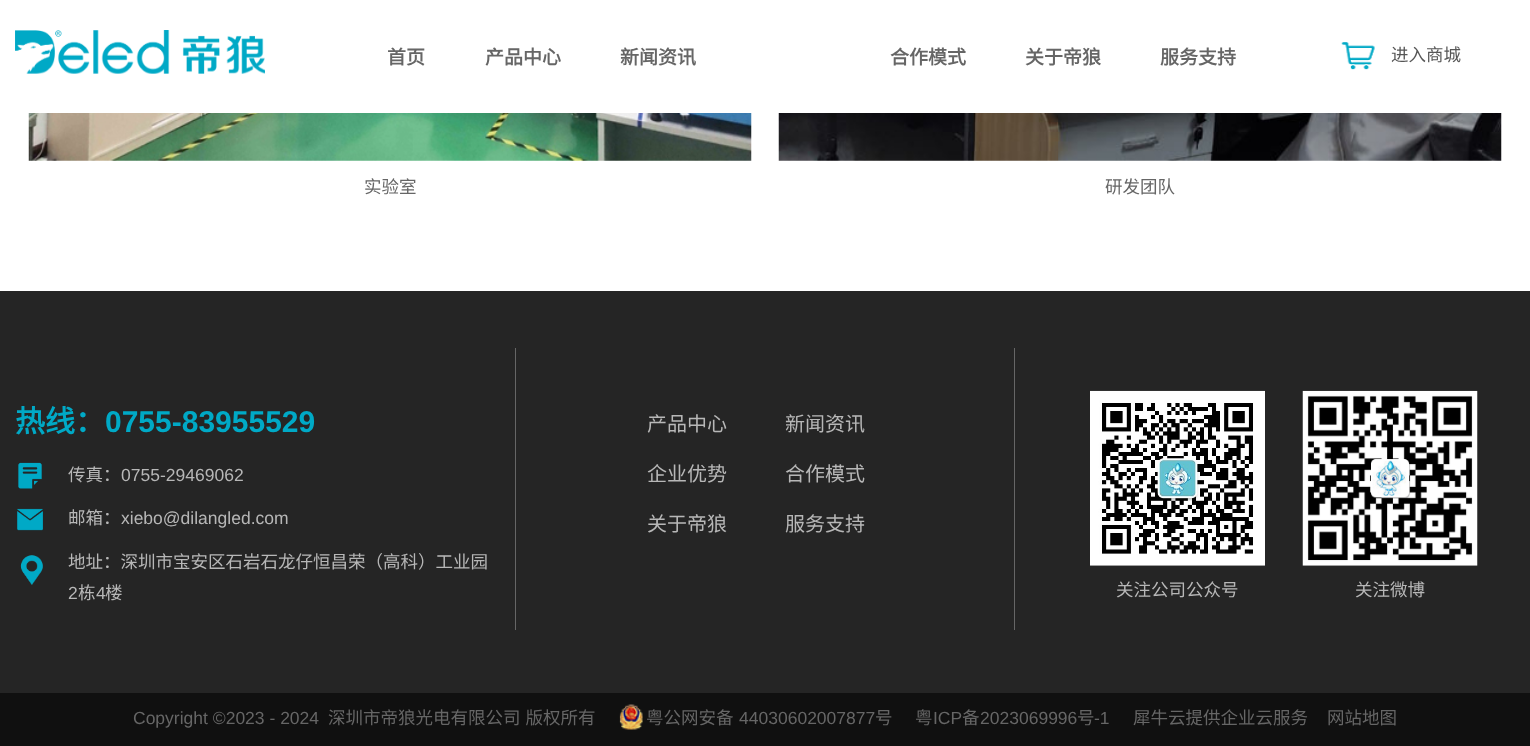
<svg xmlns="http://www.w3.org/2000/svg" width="1530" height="746">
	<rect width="100%" height="100%" fill="#FFFFFF" />
	<image x="15" y="30" width="250" height="44" href="assets/img1.png" />
	<g font-family="Noto Sans CJK SC" font-size="19" font-weight="700" fill="#666666">
		<text x="387" y="64">首页</text>
		<text x="485" y="64">产品中心</text>
		<text x="620" y="64">新闻资讯</text>
		<text x="890" y="64">合作模式</text>
		<text x="1025" y="64">关于帝狼</text>
		<text x="1160" y="64">服务支持</text>
	</g>
	<image x="1341" y="42" width="34" height="28" href="assets/img2.png" />
	<text x="1391" y="61" font-family="Noto Sans CJK SC" font-size="17.5" fill="#565656">进入商城</text>
	<image x="28" y="113" width="724" height="48" href="assets/img3.png" />
	<text x="364" y="193" font-family="Noto Sans CJK SC" font-size="17.5" fill="#666666">实验室</text>
	<image x="778" y="113" width="724" height="48" href="assets/img4.png" />
	<text x="1105" y="193" font-family="Noto Sans CJK SC" font-size="17.5" fill="#666666">研发团队</text>
	<rect x="0" y="291" width="1530" height="402" fill="#252525" />
	<text x="15" y="432" font-family="Noto Sans CJK SC" font-size="30" font-weight="700" fill="#00A9C6">热线：</text>
	<text x="105" y="432" font-family="Liberation Sans" font-size="30" font-weight="700" fill="#00A9C6">0755-83955529</text>
	<image x="18" y="462" width="24" height="27" href="assets/img5.png" />
	<text x="68" y="481" font-family="Noto Sans CJK SC" font-size="17.5" fill="#B7B7B7">传真：</text>
	<text x="121" y="481" font-family="Liberation Sans" font-size="17.5" fill="#B7B7B7">0755-29469062</text>
	<image x="17" y="508" width="26" height="23" href="assets/img6.png" />
	<text x="68" y="524" font-family="Noto Sans CJK SC" font-size="17.5" fill="#B7B7B7">邮箱：</text>
	<text x="121" y="524" font-family="Liberation Sans" font-size="17.5" fill="#B7B7B7">xiebo@dilangled.com</text>
	<image x="20" y="555" width="23" height="30" href="assets/img7.png" />
	<text x="68" y="568" font-family="Noto Sans CJK SC" font-size="17.5" fill="#B7B7B7">地址：深圳市宝安区石岩石龙仔恒昌荣（高科）工业园</text>
	<text x="68" y="599" font-family="Liberation Sans" font-size="17.5" fill="#B7B7B7">2</text>
	<text x="78" y="599" font-family="Noto Sans CJK SC" font-size="17.5" fill="#B7B7B7">栋</text>
	<text x="96" y="599" font-family="Liberation Sans" font-size="17.5" fill="#B7B7B7">4</text>
	<text x="105" y="599" font-family="Noto Sans CJK SC" font-size="17.5" fill="#B7B7B7">楼</text>
	<rect x="1014" y="348" width="1" height="282" fill="#666666" />
	<rect x="515" y="348" width="1" height="282" fill="#666666" />
	<g font-family="Noto Sans CJK SC" font-size="20" fill="#B7B7B7">
		<text x="647" y="431">产品中心</text>
		<text x="785" y="431">新闻资讯</text>
		<text x="647" y="481">企业优势</text>
		<text x="785" y="481">合作模式</text>
		<text x="647" y="531">关于帝狼</text>
		<text x="785" y="531">服务支持</text>
	</g>
	<image x="1090" y="390" width="175" height="176" href="assets/img8.png" />
	<text x="1116" y="596" font-family="Noto Sans CJK SC" font-size="17.5" fill="#B7B7B7">关注公司公众号</text>
	<image x="1302" y="390" width="176" height="176" href="assets/img9.png" />
	<text x="1355" y="596" font-family="Noto Sans CJK SC" font-size="17.5" fill="#B7B7B7">关注微博</text>
	<rect x="0" y="693" width="1530" height="53" fill="#101010" />
	<text x="133" y="724" font-family="Liberation Sans" font-size="17.5" fill="#666666">Copyright ©2023 - 2024</text>
	<text x="328" y="724" word-spacing="1" font-family="Noto Sans CJK SC" font-size="17.5" fill="#666666">深圳市帝狼光电有限公司 版权所有</text>
	<image x="619" y="704" width="24" height="26" href="assets/img10.png" />
	<text x="646" y="724" font-family="Noto Sans CJK SC" font-size="17.5" fill="#666666">粤公网安备</text>
	<text x="739" y="724" font-family="Liberation Sans" font-size="17.5" fill="#666666">44030602007877</text>
	<g font-family="Noto Sans CJK SC" font-size="17.5" fill="#666666">
		<text x="875" y="724">号</text>
		<text x="915" y="724">粤</text>
	</g>
	<text x="933" y="724" font-family="Liberation Sans" font-size="17.5" fill="#666666">ICP</text>
	<text x="962" y="724" font-family="Noto Sans CJK SC" font-size="17.5" fill="#666666">备</text>
	<text x="980" y="724" font-family="Liberation Sans" font-size="17.5" fill="#666666">2023069996</text>
	<text x="1077" y="724" font-family="Noto Sans CJK SC" font-size="17.5" fill="#666666">号</text>
	<text x="1094" y="724" font-family="Liberation Sans" font-size="17.5" fill="#666666">-1</text>
	<g font-family="Noto Sans CJK SC" font-size="17.5" fill="#666666">
		<text x="1133" y="724">犀牛云提供企业云服务</text>
		<text x="1327" y="724">网站地图</text>
	</g>
</svg>
